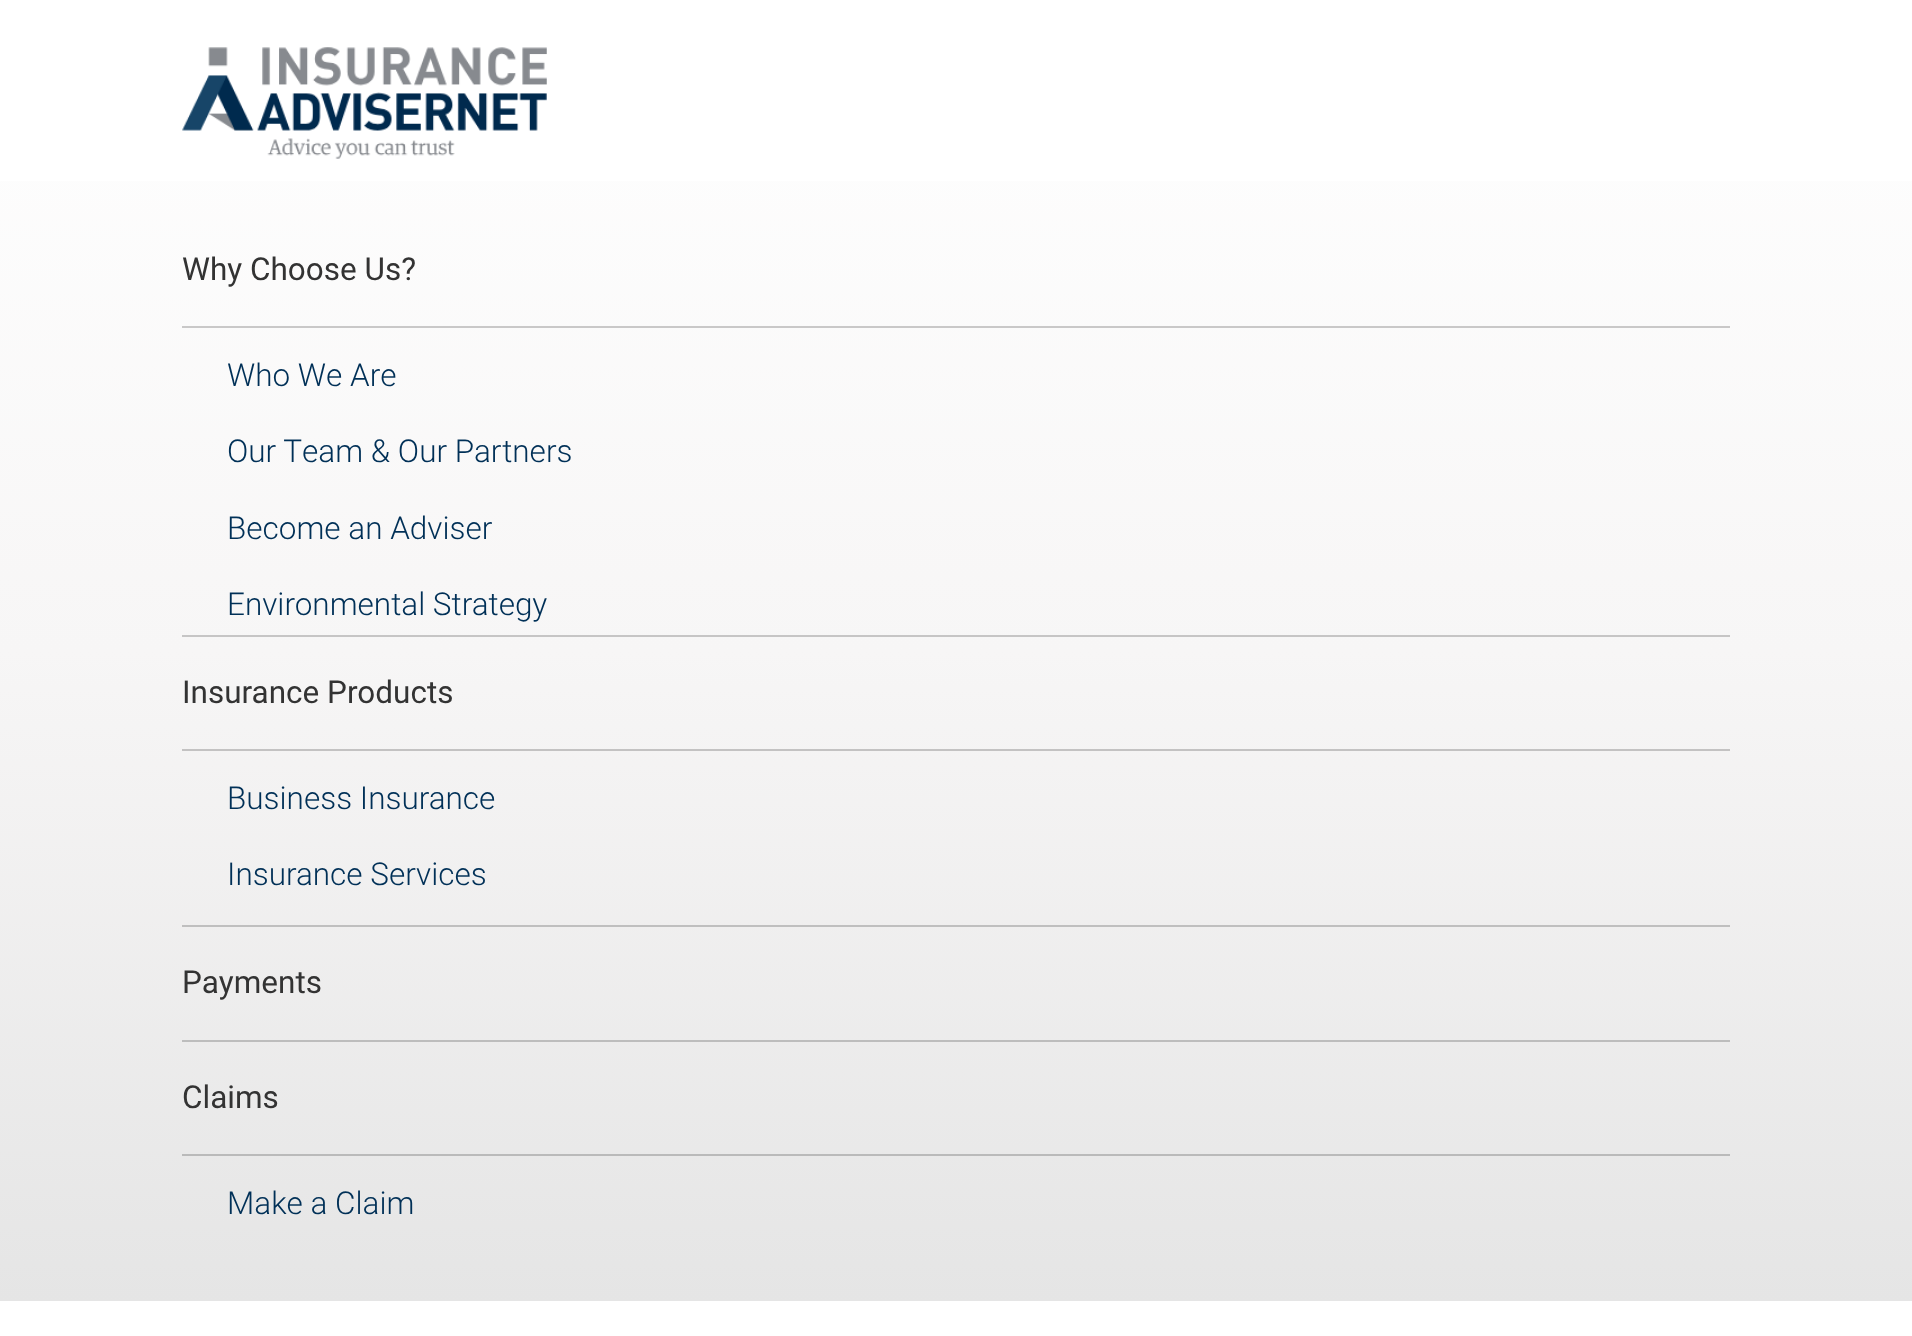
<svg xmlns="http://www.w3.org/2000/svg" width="1912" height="1336">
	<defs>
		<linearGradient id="g1" gradientUnits="userSpaceOnUse" x1="956" y1="0" x2="956" y2="1301"><stop offset="0" stop-color="#FFFFFF" /><stop offset="0.5" stop-color="#F7F6F6" /><stop offset="1" stop-color="#E5E5E5" /></linearGradient>
	</defs>
	<rect width="100%" height="100%" fill="#FFFFFF" />
	<rect x="0" y="181" width="1912" height="1120" fill="url(#g1)" />
	<image x="182" y="47" width="365" height="112" href="assets/img1.png" />
	<rect x="270" y="151" width="181" height="2" fill="#FFFFFF" fill-opacity="0.1" />
	<rect x="182" y="326" width="1548" height="2" fill="#C9C8C8" />
	<text x="182" y="280" font-family="Roboto" font-size="31.5" fill="#333333">Why Choose Us?</text>
	<rect x="182" y="635" width="1548" height="2" fill="#C6C5C5" />
	<g font-family="Roboto" font-size="31.5" font-weight="300" fill="#003057">
		<text x="227" y="386">Who We Are</text>
		<text x="227" y="462">Our Team &amp; Our Partners</text>
		<text x="227" y="539">Become an Adviser</text>
		<text x="227" y="615">Environmental Strategy</text>
	</g>
	<rect x="182" y="749" width="1548" height="2" fill="#C3C2C2" />
	<text x="182" y="703" font-family="Roboto" font-size="31.5" fill="#333333">Insurance Products</text>
	<rect x="182" y="925" width="1548" height="2" fill="#BFBFBF" />
	<g font-family="Roboto" font-size="31.5" font-weight="300" fill="#003057">
		<text x="227" y="809">Business Insurance</text>
		<text x="227" y="885">Insurance Services</text>
	</g>
	<rect x="182" y="1040" width="1548" height="2" fill="#BDBDBD" />
	<text x="182" y="993" font-family="Roboto" font-size="31.5" fill="#333333">Payments</text>
	<rect x="182" y="1154" width="1548" height="2" fill="#BABABA" />
	<text x="182" y="1108" font-family="Roboto" font-size="31.5" fill="#333333">Claims</text>
	<text x="227" y="1214" font-family="Roboto" font-size="31.5" font-weight="300" fill="#003057">Make a Claim</text>
</svg>
